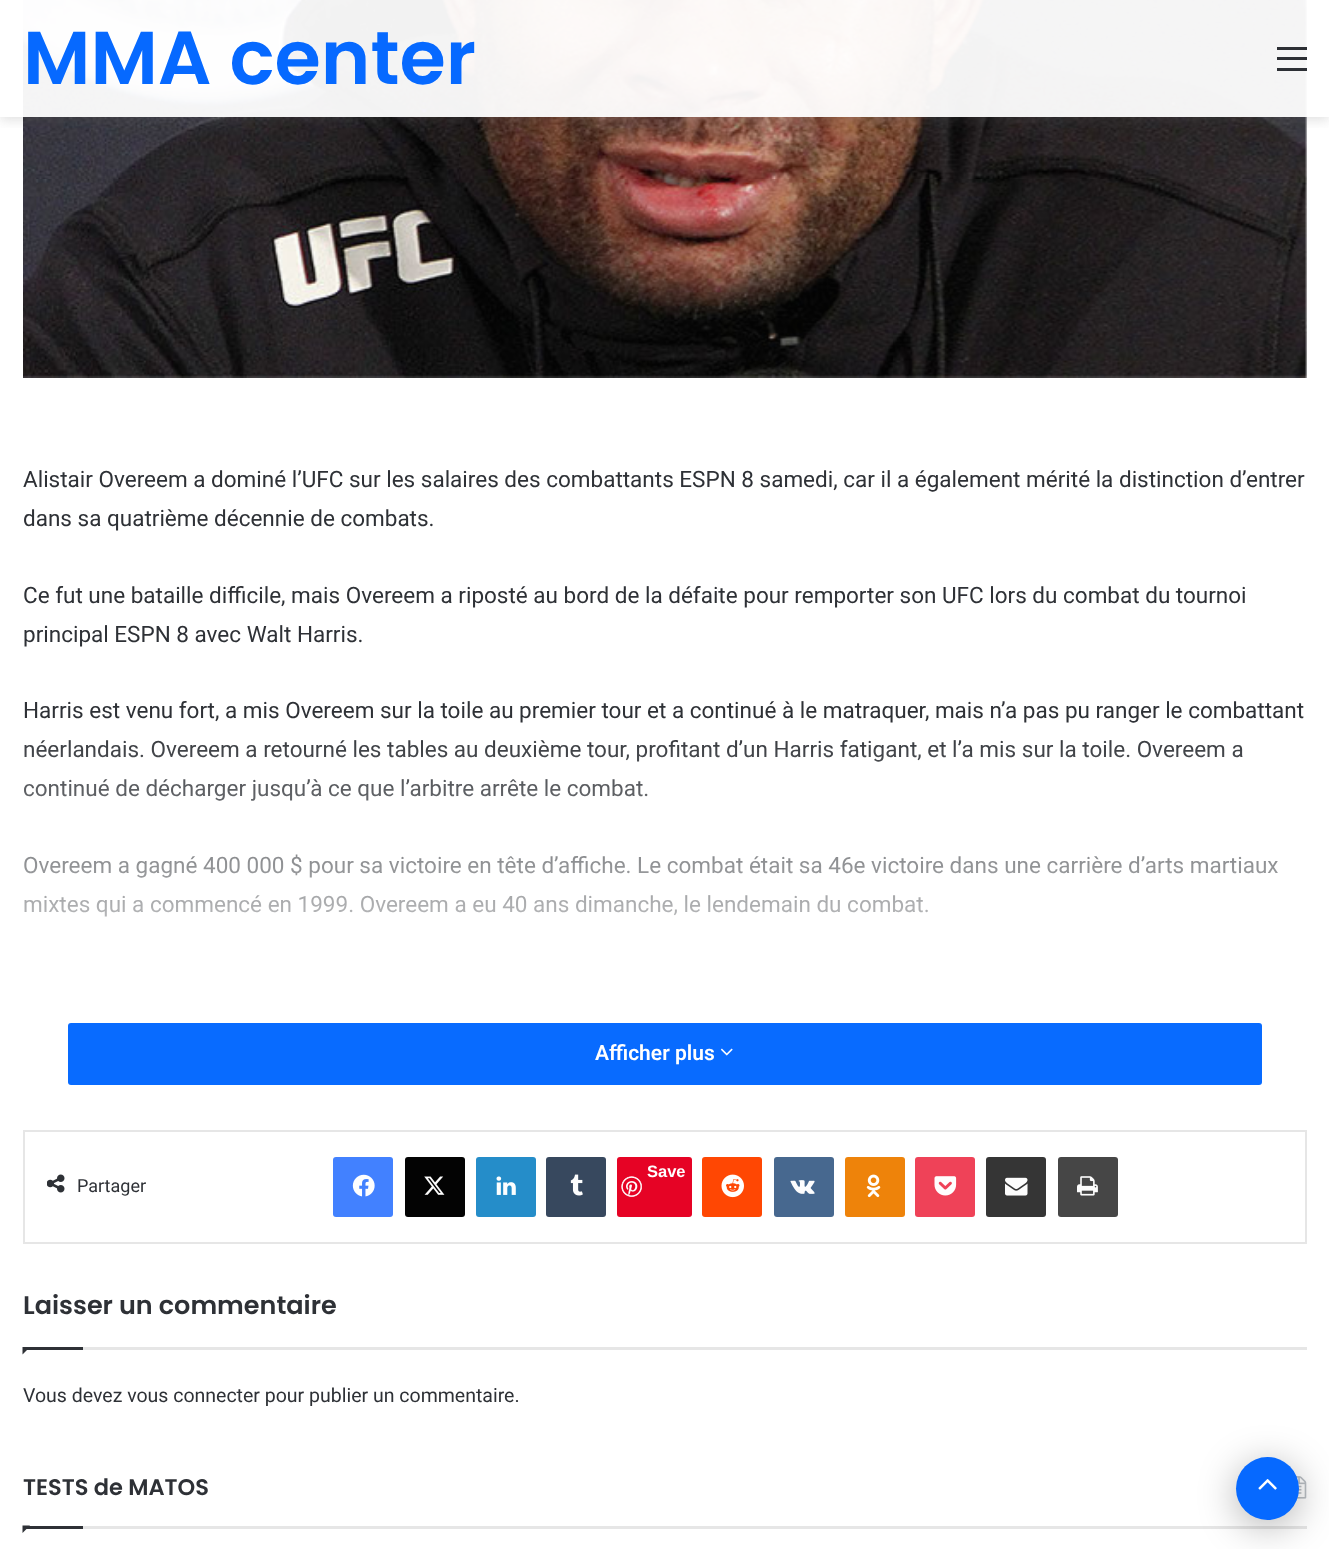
<svg xmlns="http://www.w3.org/2000/svg" width="1329" height="1549">
	<defs>
		<clipPath id="clip1"><rect x="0" y="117" width="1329" height="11" /></clipPath>
		<linearGradient id="g1" gradientUnits="userSpaceOnUse" x1="665" y1="423" x2="665" y2="1023"><stop offset="0.5" stop-color="#FFFFFF" stop-opacity="0" /><stop offset="1" stop-color="#FFFFFF" /></linearGradient>
	</defs>
	<rect width="100%" height="100%" fill="#FFFFFF" />
	<image x="23" y="0" width="1284" height="378" href="assets/img1.png" />
	<g clip-path="url(#clip1)">
		<rect x="0" y="3" width="1329" height="117" fill="#636363" fill-opacity="0.2" filter="blur(6px)" />
	</g>
	<rect x="23" y="0" width="1284" height="117" fill="#FFFFFF" fill-opacity="0.95" />
	<text x="23" y="84" font-family="Poppins" font-size="75" font-weight="600" fill="#0669FF">MMA center</text>
	<rect x="1277" y="57" width="30" height="3" fill="#2C2F34" />
	<rect x="1277" y="47" width="30" height="3" fill="#2C2F34" />
	<rect x="1277" y="68" width="30" height="3" fill="#2C2F34" />
	<g font-family="Roboto" font-size="22.5" fill="#2E3136">
		<text x="23" y="487">Alistair Overeem a dominé l’UFC sur les salaires des combattants ESPN 8 samedi, car il a également mérité la distinction d’entrer</text>
		<text x="23" y="526">dans sa quatrième décennie de combats.</text>
		<text x="23" y="603">Ce fut une bataille difficile, mais Overeem a riposté au bord de la défaite pour remporter son UFC lors du combat du tournoi</text>
		<text x="23" y="642">principal ESPN 8 avec Walt Harris.</text>
		<text x="23" y="718">Harris est venu fort, a mis Overeem sur la toile au premier tour et a continué à le matraquer, mais n’a pas pu ranger le combattant</text>
		<text x="23" y="757">néerlandais. Overeem a retourné les tables au deuxième tour, profitant d’un Harris fatigant, et l’a mis sur la toile. Overeem a</text>
		<text x="23" y="796">continué de décharger jusqu’à ce que l’arbitre arrête le combat.</text>
		<text x="23" y="873">Overeem a gagné 400 000 $ pour sa victoire en tête d’affiche. Le combat était sa 46e victoire dans une carrière d’arts martiaux</text>
		<text x="23" y="912">mixtes qui a commencé en 1999. Overeem a eu 40 ans dimanche, le lendemain du combat.</text>
	</g>
	<rect x="23" y="740" width="1255" height="177" fill="url(#g1)" />
	<rect x="68" y="1023" width="1194" height="62" rx="3" fill="#086BFF" />
	<text x="595" y="1060" font-family="Roboto" font-size="21" font-weight="600" fill="#FFFFFF">Afficher plus</text>
	<image x="720" y="1048" width="13" height="8" href="assets/img2.png" />
	<rect x="24" y="1131" width="1282" height="112" fill="none" stroke="#E6E6E6" stroke-width="2" />
	<rect x="333" y="1157" width="60" height="60" rx="3" fill="#4281FF" />
	<image x="352" y="1174" width="23" height="23" href="assets/img3.png" />
	<rect x="405" y="1157" width="60" height="60" rx="3" fill="#030303" />
	<image x="424" y="1176" width="21" height="19" href="assets/img4.png" />
	<rect x="476" y="1157" width="60" height="60" rx="3" fill="#258DC9" />
	<image x="496" y="1176" width="20" height="19" href="assets/img5.png" />
	<rect x="546" y="1157" width="60" height="60" rx="3" fill="#37485E" />
	<image x="570" y="1174" width="13" height="22" href="assets/img6.png" />
	<rect x="617" y="1157" width="75" height="60" rx="3" fill="#E60325" />
	<image x="621" y="1176" width="21" height="21" href="assets/img7.png" />
	<text x="647" y="1177" font-family="Liberation Sans" font-size="16.5" font-weight="700" fill="#FFFFFF">Save</text>
	<rect x="702" y="1157" width="60" height="60" rx="3" fill="#FF4703" />
	<image x="721" y="1174" width="23" height="24" href="assets/img8.png" />
	<rect x="774" y="1157" width="60" height="60" rx="3" fill="#47688F" />
	<image x="790" y="1180" width="25" height="14" href="assets/img9.png" />
	<rect x="845" y="1157" width="60" height="60" rx="3" fill="#EE830A" />
	<image x="866" y="1174" width="15" height="24" href="assets/img10.png" />
	<rect x="915" y="1157" width="60" height="60" rx="3" fill="#EF4258" />
	<image x="934" y="1176" width="23" height="20" href="assets/img11.png" />
	<rect x="986" y="1157" width="60" height="60" rx="3" fill="#353535" />
	<image x="1005" y="1177" width="23" height="19" href="assets/img12.png" />
	<rect x="1058" y="1157" width="60" height="60" rx="3" fill="#464646" />
	<image x="1077" y="1176" width="21" height="20" href="assets/img13.png" />
	<image x="47" y="1174" width="18" height="19" href="assets/img14.png" />
	<text x="77" y="1192" font-family="Roboto" font-size="18" fill="#2E3136">Partager</text>
	<rect x="83" y="1347" width="1224" height="3" fill="#E6E6E6" />
	<text x="23" y="1314" font-family="Poppins" font-size="25.5" font-weight="600" fill="#2E3136">Laisser un commentaire</text>
	<path d="M22.5 1347H30L22.5 1354.5Z" fill="#2E3136" />
	<rect x="23" y="1347" width="60" height="3" fill="#2E3136" />
	<text x="23" y="1402" font-family="Roboto" font-size="19.5" fill="#2E3136">Vous devez vous connecter pour publier un commentaire.</text>
	<rect x="83" y="1526" width="1224" height="3" fill="#E6E6E6" />
	<text x="23" y="1495" font-family="Poppins" font-size="22.5" font-weight="600" fill="#2E3136">TESTS de MATOS</text>
	<image x="1296" y="1476" width="11" height="23" href="assets/img15.png" />
	<path d="M22.5 1525.5H30L22.5 1533Z" fill="#2E3136" />
	<rect x="23" y="1526" width="60" height="3" fill="#2E3136" />
	<rect x="1236" y="1464" width="63" height="63" rx="31.5" fill="#000000" fill-opacity="0.3" filter="blur(19px)" />
	<circle cx="1267.5" cy="1488.5" r="31.5" fill="#0669FF" />
	<image x="1258" y="1479" width="19" height="11" href="assets/img16.png" />
</svg>
